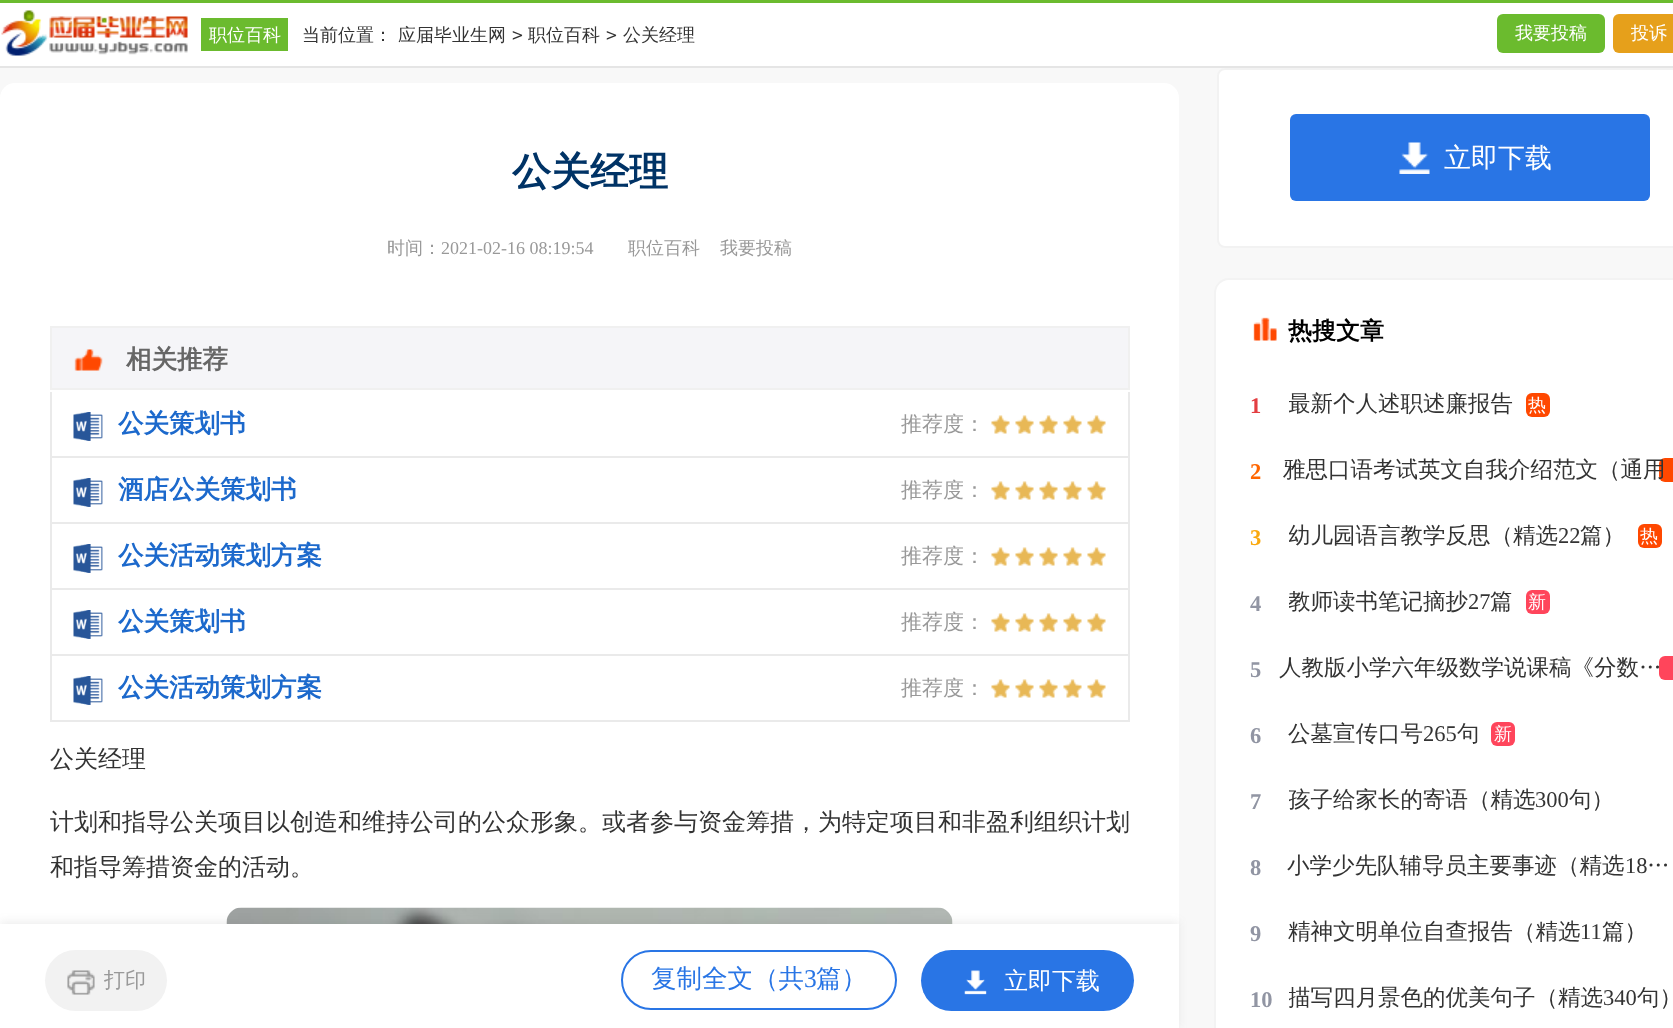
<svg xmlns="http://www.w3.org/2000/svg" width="1673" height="1028">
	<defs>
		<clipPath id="clip1"><rect x="1289" y="371" width="261" height="66" /></clipPath>
		<clipPath id="clip2"><rect x="1289" y="503" width="373" height="66" /></clipPath>
		<clipPath id="clip3"><rect x="1289" y="569" width="261" height="66" /></clipPath>
		<clipPath id="clip4"><rect x="1289" y="767" width="325" height="66" /></clipPath>
		<clipPath id="clip5"><rect x="1289" y="965" width="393" height="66" /></clipPath>
	</defs>
	<rect width="100%" height="100%" fill="#F8F8F8" />
	<rect x="0" y="3" width="1673" height="63" fill="#FFFFFF" />
	<rect x="0" y="0" width="1673" height="3" fill="#6BBB2E" />
	<rect x="0" y="66" width="1673" height="2" fill="#E5E5E5" />
	<image x="1" y="10" width="187" height="46" href="assets/img1.png" />
	<rect x="201" y="18" width="87" height="33" fill="#6BBB2E" />
	<text x="209" y="41" font-family="WenQuanYi Zen Hei" font-size="18" font-weight="500" fill="#FFFFFF">职位百科</text>
	<g font-family="WenQuanYi Zen Hei" font-size="18" font-weight="500" fill="#333333">
		<text x="302" y="41">当前位置：</text>
		<text x="398" y="41">应届毕业生网</text>
	</g>
	<text x="512" y="41" font-family="DejaVu Sans Mono" font-size="18" fill="#333333">&gt;</text>
	<text x="528" y="41" font-family="WenQuanYi Zen Hei" font-size="18" font-weight="500" fill="#333333">职位百科</text>
	<text x="606" y="41" font-family="DejaVu Sans Mono" font-size="18" fill="#333333">&gt;</text>
	<text x="623" y="41" font-family="WenQuanYi Zen Hei" font-size="18" font-weight="500" fill="#333333">公关经理</text>
	<rect x="1497" y="14" width="108" height="39" rx="6" fill="#6BBB2E" />
	<text x="1515" y="39" font-family="WenQuanYi Zen Hei" font-size="18" font-weight="500" fill="#FFFFFF">我要投稿</text>
	<rect x="1613" y="14" width="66" height="39" rx="6" fill="#E6A01B" />
	<text x="1631" y="39" font-family="WenQuanYi Zen Hei" font-size="18" font-weight="500" fill="#FFFFFF">投诉</text>
	<rect x="0" y="83" width="1179" height="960" rx="15" fill="#FFFFFF" />
	<text x="512" y="185" font-family="WenQuanYi Zen Hei" font-size="39" font-weight="700" fill="#003366">公关经理</text>
	<text x="387" y="254" font-family="WenQuanYi Zen Hei" font-size="18" font-weight="500" fill="#999999">时间：</text>
	<text x="441" y="254" font-family="Liberation Serif" font-size="18" fill="#999999">2021-02-16 08:19:54</text>
	<g font-family="WenQuanYi Zen Hei" font-size="18" font-weight="500" fill="#999999">
		<text x="628" y="254">职位百科</text>
		<text x="720" y="254">我要投稿</text>
	</g>
	<rect x="51" y="327" width="1078" height="62" fill="#F5F5F8" stroke="#F0F0F0" stroke-width="2" />
	<image x="74" y="349" width="29" height="22" href="assets/img2.png" />
	<text x="126" y="368" font-family="WenQuanYi Zen Hei" font-size="25.5" font-weight="700" fill="#666666">相关推荐</text>
	<rect x="1128" y="392" width="2" height="330" fill="#EAEAEA" />
	<rect x="50" y="456" width="1080" height="2" fill="#EAEAEA" />
	<rect x="50" y="392" width="2" height="66" fill="#EAEAEA" />
	<image x="73" y="412" width="30" height="29" href="assets/img3.png" />
	<text x="118" y="432" font-family="WenQuanYi Zen Hei" font-size="25.5" font-weight="700" fill="#1C69CC">公关策划书</text>
	<text x="901" y="431" font-family="WenQuanYi Zen Hei" font-size="21" font-weight="500" fill="#999999">推荐度：</text>
	<image x="991" y="415" width="115" height="19" href="assets/img4.png" />
	<rect x="50" y="522" width="1080" height="2" fill="#EAEAEA" />
	<rect x="50" y="458" width="2" height="66" fill="#EAEAEA" />
	<image x="73" y="478" width="30" height="29" href="assets/img3.png" />
	<text x="118" y="498" font-family="WenQuanYi Zen Hei" font-size="25.5" font-weight="700" fill="#1C69CC">酒店公关策划书</text>
	<text x="901" y="497" font-family="WenQuanYi Zen Hei" font-size="21" font-weight="500" fill="#999999">推荐度：</text>
	<image x="991" y="481" width="115" height="19" href="assets/img4.png" />
	<rect x="50" y="588" width="1080" height="2" fill="#EAEAEA" />
	<rect x="50" y="524" width="2" height="66" fill="#EAEAEA" />
	<image x="73" y="544" width="30" height="29" href="assets/img3.png" />
	<text x="118" y="564" font-family="WenQuanYi Zen Hei" font-size="25.5" font-weight="700" fill="#1C69CC">公关活动策划方案</text>
	<text x="901" y="563" font-family="WenQuanYi Zen Hei" font-size="21" font-weight="500" fill="#999999">推荐度：</text>
	<image x="991" y="547" width="115" height="19" href="assets/img4.png" />
	<rect x="50" y="654" width="1080" height="2" fill="#EAEAEA" />
	<rect x="50" y="590" width="2" height="66" fill="#EAEAEA" />
	<image x="73" y="610" width="30" height="29" href="assets/img3.png" />
	<text x="118" y="630" font-family="WenQuanYi Zen Hei" font-size="25.5" font-weight="700" fill="#1C69CC">公关策划书</text>
	<text x="901" y="629" font-family="WenQuanYi Zen Hei" font-size="21" font-weight="500" fill="#999999">推荐度：</text>
	<image x="991" y="613" width="115" height="19" href="assets/img4.png" />
	<rect x="50" y="720" width="1080" height="2" fill="#EAEAEA" />
	<rect x="50" y="656" width="2" height="66" fill="#EAEAEA" />
	<image x="73" y="676" width="30" height="29" href="assets/img3.png" />
	<text x="118" y="696" font-family="WenQuanYi Zen Hei" font-size="25.5" font-weight="700" fill="#1C69CC">公关活动策划方案</text>
	<text x="901" y="695" font-family="WenQuanYi Zen Hei" font-size="21" font-weight="500" fill="#999999">推荐度：</text>
	<image x="991" y="679" width="115" height="19" href="assets/img4.png" />
	<g font-family="WenQuanYi Zen Hei" font-size="24" font-weight="500" fill="#333333">
		<text x="50" y="767">公关经理</text>
		<text x="50" y="830">计划和指导公关项目以创造和维持公司的公众形象。或者参与资金筹措，为特定项目和非盈利组织计划</text>
		<text x="50" y="875">和指导筹措资金的活动。</text>
	</g>
	<image x="226" y="907" width="727" height="17" href="assets/img5.png" />
	<rect x="0" y="921" width="1179" height="107" fill="#666666" fill-opacity="0.1" filter="blur(4px)" />
	<rect x="0" y="924" width="1179" height="104" fill="#FFFFFF" />
	<rect x="45" y="950" width="122" height="61" rx="30.5" fill="#F2F2F2" />
	<image x="67" y="970" width="28" height="25" href="assets/img6.png" />
	<text x="104" y="987" font-family="WenQuanYi Zen Hei" font-size="21" font-weight="500" fill="#999999">打印</text>
	<rect x="622" y="951" width="274" height="58" rx="29" fill="none" stroke="#2975E5" stroke-width="2" />
	<text x="651" y="987" font-family="WenQuanYi Zen Hei" font-size="25.5" font-weight="500" fill="#2975E5">复制全文（共</text>
	<text x="804" y="987" font-family="Liberation Serif" font-size="25.5" fill="#2975E5">3</text>
	<text x="816" y="987" font-family="WenQuanYi Zen Hei" font-size="25.5" font-weight="500" fill="#2975E5">篇）</text>
	<rect x="921" y="950" width="213" height="61" rx="30.5" fill="#2975E5" />
	<image x="964" y="970" width="23" height="25" href="assets/img7.png" />
	<text x="1004" y="989" font-family="WenQuanYi Zen Hei" font-size="24" font-weight="500" fill="#FFFFFF">立即下载</text>
	<rect x="1218" y="69" width="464" height="178" rx="7" fill="#FFFFFF" stroke="#F2F2F2" stroke-width="2" />
	<rect x="1290" y="114" width="360" height="87" rx="6" fill="#2975E5" />
	<image x="1399" y="142" width="31" height="32" href="assets/img8.png" />
	<text x="1444" y="167" font-family="WenQuanYi Zen Hei" font-size="27" font-weight="500" fill="#FFFFFF">立即下载</text>
	<rect x="1215" y="279" width="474" height="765" rx="14" fill="#FFFFFF" stroke="#F3F3F3" stroke-width="2" />
	<image x="1253" y="317" width="24" height="24" href="assets/img9.png" />
	<text x="1288" y="339" font-family="WenQuanYi Zen Hei" font-size="24" font-weight="700" fill="#000000">热搜文章</text>
	<text x="1250" y="413" font-family="Liberation Serif" font-size="22.5" font-weight="700" fill="#E33E42">1</text>
	<g clip-path="url(#clip1)">
		<text x="1288" y="411" font-family="WenQuanYi Zen Hei" font-size="22.5" font-weight="500" fill="#333333">最新个人述职述廉报告</text>
	</g>
	<rect x="1526" y="393" width="24" height="24" rx="6" fill="#FF4800" />
	<text x="1528" y="411" font-family="WenQuanYi Zen Hei" font-size="18" font-weight="500" fill="#FFFFFF">热</text>
	<text x="1250" y="479" font-family="Liberation Serif" font-size="22.5" font-weight="700" fill="#FF6600">2</text>
	<rect x="1659" y="458" width="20" height="24" rx="6" fill="#FF4800" />
	<text x="1283" y="477" font-family="WenQuanYi Zen Hei" font-size="22.5" font-weight="500" fill="#333333">雅思口语考试英文自我介绍范文（通用</text>
	<text x="1250" y="545" font-family="Liberation Serif" font-size="22.5" font-weight="700" fill="#FAA90E">3</text>
	<g clip-path="url(#clip2)">
		<text x="1288" y="543" font-family="WenQuanYi Zen Hei" font-size="22.5" font-weight="500" fill="#333333">幼儿园语言教学反思（精选</text>
	</g>
	<text x="1558" y="543" font-family="Liberation Serif" font-size="22.5" fill="#333333">22</text>
	<text x="1580" y="543" font-family="WenQuanYi Zen Hei" font-size="22.5" font-weight="500" fill="#333333">篇）</text>
	<rect x="1638" y="524" width="24" height="24" rx="6" fill="#FF4800" />
	<text x="1640" y="542" font-family="WenQuanYi Zen Hei" font-size="18" font-weight="500" fill="#FFFFFF">热</text>
	<text x="1250" y="611" font-family="Liberation Serif" font-size="22.5" font-weight="700" fill="#9195A3">4</text>
	<g clip-path="url(#clip3)">
		<text x="1288" y="609" font-family="WenQuanYi Zen Hei" font-size="22.5" font-weight="500" fill="#333333">教师读书笔记摘抄</text>
	</g>
	<text x="1468" y="609" font-family="Liberation Serif" font-size="22.5" fill="#333333">27</text>
	<text x="1490" y="609" font-family="WenQuanYi Zen Hei" font-size="22.5" font-weight="500" fill="#333333">篇</text>
	<rect x="1526" y="590" width="24" height="24" rx="6" fill="#FF455B" />
	<text x="1528" y="608" font-family="WenQuanYi Zen Hei" font-size="18" font-weight="500" fill="#FFFFFF">新</text>
	<text x="1250" y="677" font-family="Liberation Serif" font-size="22.5" font-weight="700" fill="#9195A3">5</text>
	<text x="1279" y="675" font-family="WenQuanYi Zen Hei" font-size="22.5" font-weight="500" fill="#333333">人教版小学六年级数学说课稿《分数…</text>
	<rect x="1659" y="656" width="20" height="24" rx="6" fill="#FF455B" />
	<text x="1250" y="743" font-family="Liberation Serif" font-size="22.5" font-weight="700" fill="#9195A3">6</text>
	<text x="1288" y="741" font-family="WenQuanYi Zen Hei" font-size="22.5" font-weight="500" fill="#333333">公墓宣传口号</text>
	<text x="1423" y="741" font-family="Liberation Serif" font-size="22.5" fill="#333333">265</text>
	<text x="1457" y="741" font-family="WenQuanYi Zen Hei" font-size="22.5" font-weight="500" fill="#333333">句</text>
	<rect x="1491" y="722" width="24" height="24" rx="6" fill="#FF455B" />
	<text x="1494" y="740" font-family="WenQuanYi Zen Hei" font-size="18" font-weight="500" fill="#FFFFFF">新</text>
	<text x="1250" y="809" font-family="Liberation Serif" font-size="22.5" font-weight="700" fill="#9195A3">7</text>
	<g clip-path="url(#clip4)">
		<text x="1288" y="807" font-family="WenQuanYi Zen Hei" font-size="22.5" font-weight="500" fill="#333333">孩子给家长的寄语（精选</text>
	</g>
	<text x="1535" y="807" font-family="Liberation Serif" font-size="22.5" fill="#333333">300</text>
	<text x="1569" y="807" font-family="WenQuanYi Zen Hei" font-size="22.5" font-weight="500" fill="#333333">句）</text>
	<text x="1250" y="875" font-family="Liberation Serif" font-size="22.5" font-weight="700" fill="#9195A3">8</text>
	<text x="1287" y="873" font-family="WenQuanYi Zen Hei" font-size="22.5" font-weight="500" fill="#333333">小学少先队辅导员主要事迹（精选</text>
	<text x="1625" y="873" font-family="Liberation Serif" font-size="22.5" fill="#333333">18</text>
	<text x="1647" y="873" font-family="WenQuanYi Zen Hei" font-size="22.5" font-weight="500" fill="#333333">…</text>
	<text x="1250" y="941" font-family="Liberation Serif" font-size="22.5" font-weight="700" fill="#9195A3">9</text>
	<text x="1288" y="939" font-family="WenQuanYi Zen Hei" font-size="22.5" font-weight="500" fill="#333333">精神文明单位自查报告（精选</text>
	<text x="1580" y="939" font-family="Liberation Serif" font-size="22.5" fill="#333333">11</text>
	<text x="1602" y="939" font-family="WenQuanYi Zen Hei" font-size="22.5" font-weight="500" fill="#333333">篇）</text>
	<text x="1250" y="1007" font-family="Liberation Serif" font-size="22.5" font-weight="700" fill="#9195A3">10</text>
	<g clip-path="url(#clip5)">
		<text x="1288" y="1005" font-family="WenQuanYi Zen Hei" font-size="22.5" font-weight="500" fill="#333333">描写四月景色的优美句子（精选</text>
	</g>
	<text x="1603" y="1005" font-family="Liberation Serif" font-size="22.5" fill="#333333">340</text>
	<text x="1637" y="1005" font-family="WenQuanYi Zen Hei" font-size="22.5" font-weight="500" fill="#333333">句）</text>
</svg>
